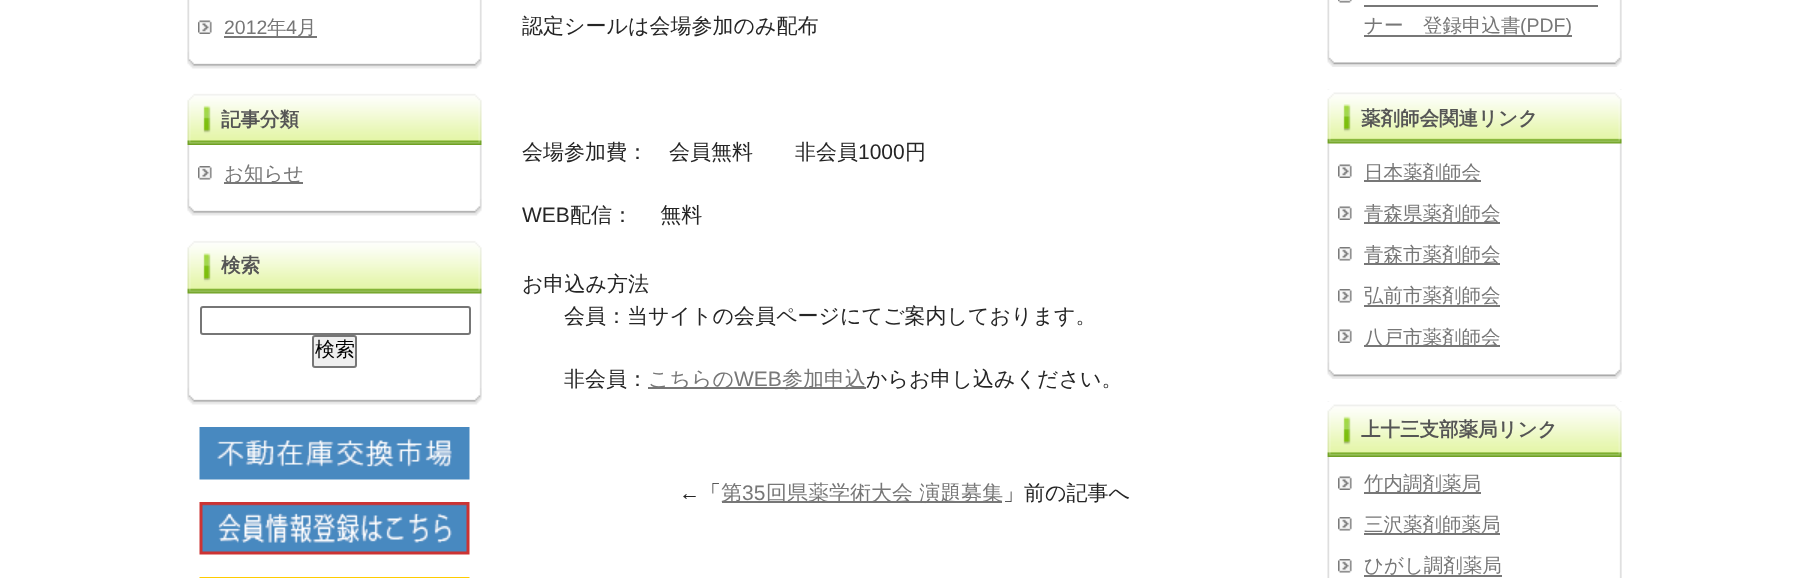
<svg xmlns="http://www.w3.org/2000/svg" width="1808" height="578">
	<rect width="100%" height="100%" fill="#FFFFFF" />
	<image x="187" y="0" width="295" height="69" href="assets/img1.png" />
	<image x="198" y="20" width="14" height="14" href="assets/img2.png" />
	<text x="224" y="34" font-family="Liberation Sans" font-size="19.5" fill="#777777">2012</text>
	<rect x="224" y="36" width="93" height="2" fill="#777777" />
	<text x="267" y="34" font-family="WenQuanYi Zen Hei" font-size="19.5" font-weight="500" fill="#777777">年</text>
	<text x="286" y="34" font-family="Liberation Sans" font-size="19.5" fill="#777777">4</text>
	<text x="297" y="34" font-family="WenQuanYi Zen Hei" font-size="19.5" font-weight="500" fill="#777777">月</text>
	<image x="187" y="145" width="295" height="71" href="assets/img3.png" />
	<image x="187" y="91" width="295" height="54" href="assets/img4.png" />
	<text x="221" y="126" font-family="WenQuanYi Zen Hei" font-size="19.5" font-weight="700" fill="#555555">記事分類</text>
	<image x="198" y="166" width="14" height="14" href="assets/img5.png" />
	<rect x="224" y="182" width="79" height="2" fill="#777777" />
	<text x="224" y="180" font-family="WenQuanYi Zen Hei" font-size="19.5" font-weight="500" fill="#777777">お知らせ</text>
	<image x="187" y="293" width="295" height="112" href="assets/img6.png" />
	<image x="187" y="238" width="295" height="56" href="assets/img7.png" />
	<text x="221" y="272" font-family="WenQuanYi Zen Hei" font-size="19.5" font-weight="700" fill="#555555">検索</text>
	<rect x="201" y="307" width="269" height="27" rx="2" fill="none" stroke="#767676" stroke-width="2" />
	<rect x="313" y="336" width="43" height="31" rx="2" fill="#EFEFEF" stroke="#767676" stroke-width="2" />
	<text x="315" y="356" font-family="WenQuanYi Zen Hei" font-size="20" font-weight="500" fill="#000000">検索</text>
	<image x="199" y="427" width="271" height="53" href="assets/img8.png" />
	<image x="199" y="502" width="271" height="53" href="assets/img9.png" />
	<image x="199" y="577" width="271" height="1" href="assets/img10.png" />
	<g font-family="WenQuanYi Zen Hei" font-size="21" font-weight="500" fill="#252525">
		<text x="522" y="33">認定シールは会場参加のみ配布</text>
		<text x="522" y="159">会場参加費：　会員無料　　非会員</text>
	</g>
	<text x="858" y="159" font-family="Liberation Sans" font-size="21" fill="#252525">1000</text>
	<text x="905" y="159" font-family="WenQuanYi Zen Hei" font-size="21" font-weight="500" fill="#252525">円</text>
	<text x="522" y="222" font-family="Liberation Sans" font-size="21" fill="#252525">WEB</text>
	<g font-family="WenQuanYi Zen Hei" font-size="21" font-weight="500" fill="#252525">
		<text x="570" y="222">配信：　 無料</text>
		<text x="522" y="291">お申込み方法</text>
		<text x="564" y="323">会員：当サイトの会員ページにてご案内しております。</text>
		<text x="564" y="386">非会員：</text>
	</g>
	<rect x="648" y="387" width="218" height="2" fill="#777777" />
	<text x="648" y="386" font-family="WenQuanYi Zen Hei" font-size="21" font-weight="500" fill="#777777">こちらの</text>
	<text x="734" y="386" font-family="Liberation Sans" font-size="21" fill="#777777">WEB</text>
	<text x="782" y="386" font-family="WenQuanYi Zen Hei" font-size="21" font-weight="500" fill="#777777">参加申込</text>
	<text x="866" y="386" font-family="WenQuanYi Zen Hei" font-size="21" font-weight="500" fill="#252525">からお申し込みください。</text>
	<text x="679" y="500" font-family="Liberation Sans" font-size="21" fill="#252525">←</text>
	<text x="700" y="500" font-family="WenQuanYi Zen Hei" font-size="21" font-weight="500" fill="#252525">「</text>
	<rect x="722" y="501" width="280" height="2" fill="#777777" />
	<text x="721" y="500" font-family="WenQuanYi Zen Hei" font-size="21" font-weight="500" fill="#777777">第</text>
	<text x="742" y="500" font-family="Liberation Sans" font-size="21" fill="#777777">35</text>
	<text x="766" y="500" font-family="WenQuanYi Zen Hei" font-size="21" font-weight="500" fill="#777777">回県薬学術大会 演題募集</text>
	<text x="1003" y="500" font-family="WenQuanYi Zen Hei" font-size="21" font-weight="500" fill="#252525">」前の記事へ</text>
	<image x="1327" y="0" width="295" height="67" href="assets/img11.png" />
	<image x="1338" y="0" width="14" height="3" href="assets/img12.png" />
	<text x="1364" y="32" font-family="WenQuanYi Zen Hei" font-size="19.5" font-weight="500" fill="#777777">ナー　登録申込書</text>
	<rect x="1364" y="5" width="234" height="2" fill="#777777" />
	<rect x="1364" y="35" width="208" height="2" fill="#777777" />
	<text x="1520" y="32" font-family="Liberation Sans" font-size="19.5" fill="#777777">(PDF)</text>
	<image x="1327" y="89" width="295" height="290" href="assets/img13.png" />
	<image x="1327" y="89" width="295" height="55" href="assets/img14.png" />
	<text x="1361" y="125" font-family="WenQuanYi Zen Hei" font-size="19.5" font-weight="700" fill="#555555">薬剤師会関連リンク</text>
	<image x="1338" y="164" width="14" height="14" href="assets/img15.png" />
	<rect x="1364" y="180" width="117" height="2" fill="#777777" />
	<text x="1364" y="179" font-family="WenQuanYi Zen Hei" font-size="19.5" font-weight="500" fill="#777777">日本薬剤師会</text>
	<image x="1338" y="206" width="14" height="14" href="assets/img15.png" />
	<rect x="1364" y="222" width="136" height="2" fill="#777777" />
	<text x="1364" y="220" font-family="WenQuanYi Zen Hei" font-size="19.5" font-weight="500" fill="#777777">青森県薬剤師会</text>
	<image x="1338" y="247" width="14" height="14" href="assets/img16.png" />
	<rect x="1364" y="263" width="136" height="2" fill="#777777" />
	<text x="1364" y="261" font-family="WenQuanYi Zen Hei" font-size="19.5" font-weight="500" fill="#777777">青森市薬剤師会</text>
	<image x="1338" y="289" width="14" height="14" href="assets/img16.png" />
	<text x="1364" y="302" font-family="WenQuanYi Zen Hei" font-size="19.5" font-weight="500" fill="#777777">弘前市薬剤師会</text>
	<rect x="1364" y="305" width="136" height="2" fill="#777777" />
	<image x="1338" y="329" width="14" height="14" href="assets/img15.png" />
	<rect x="1364" y="345" width="136" height="2" fill="#777777" />
	<text x="1364" y="344" font-family="WenQuanYi Zen Hei" font-size="19.5" font-weight="500" fill="#777777">八戸市薬剤師会</text>
	<image x="1327" y="401" width="295" height="177" href="assets/img17.png" />
	<image x="1327" y="401" width="295" height="56" href="assets/img18.png" />
	<text x="1361" y="436" font-family="WenQuanYi Zen Hei" font-size="19.5" font-weight="700" fill="#555555">上十三支部薬局リンク</text>
	<image x="1338" y="476" width="14" height="14" href="assets/img15.png" />
	<rect x="1364" y="492" width="117" height="2" fill="#777777" />
	<text x="1364" y="490" font-family="WenQuanYi Zen Hei" font-size="19.5" font-weight="500" fill="#777777">竹内調剤薬局</text>
	<image x="1338" y="517" width="14" height="14" href="assets/img16.png" />
	<rect x="1364" y="533" width="136" height="2" fill="#777777" />
	<text x="1364" y="531" font-family="WenQuanYi Zen Hei" font-size="19.5" font-weight="500" fill="#777777">三沢薬剤師薬局</text>
	<image x="1338" y="559" width="14" height="14" href="assets/img16.png" />
	<text x="1364" y="572" font-family="WenQuanYi Zen Hei" font-size="19.5" font-weight="500" fill="#777777">ひがし調剤薬局</text>
	<rect x="1364" y="575" width="138" height="2" fill="#777777" />
</svg>
